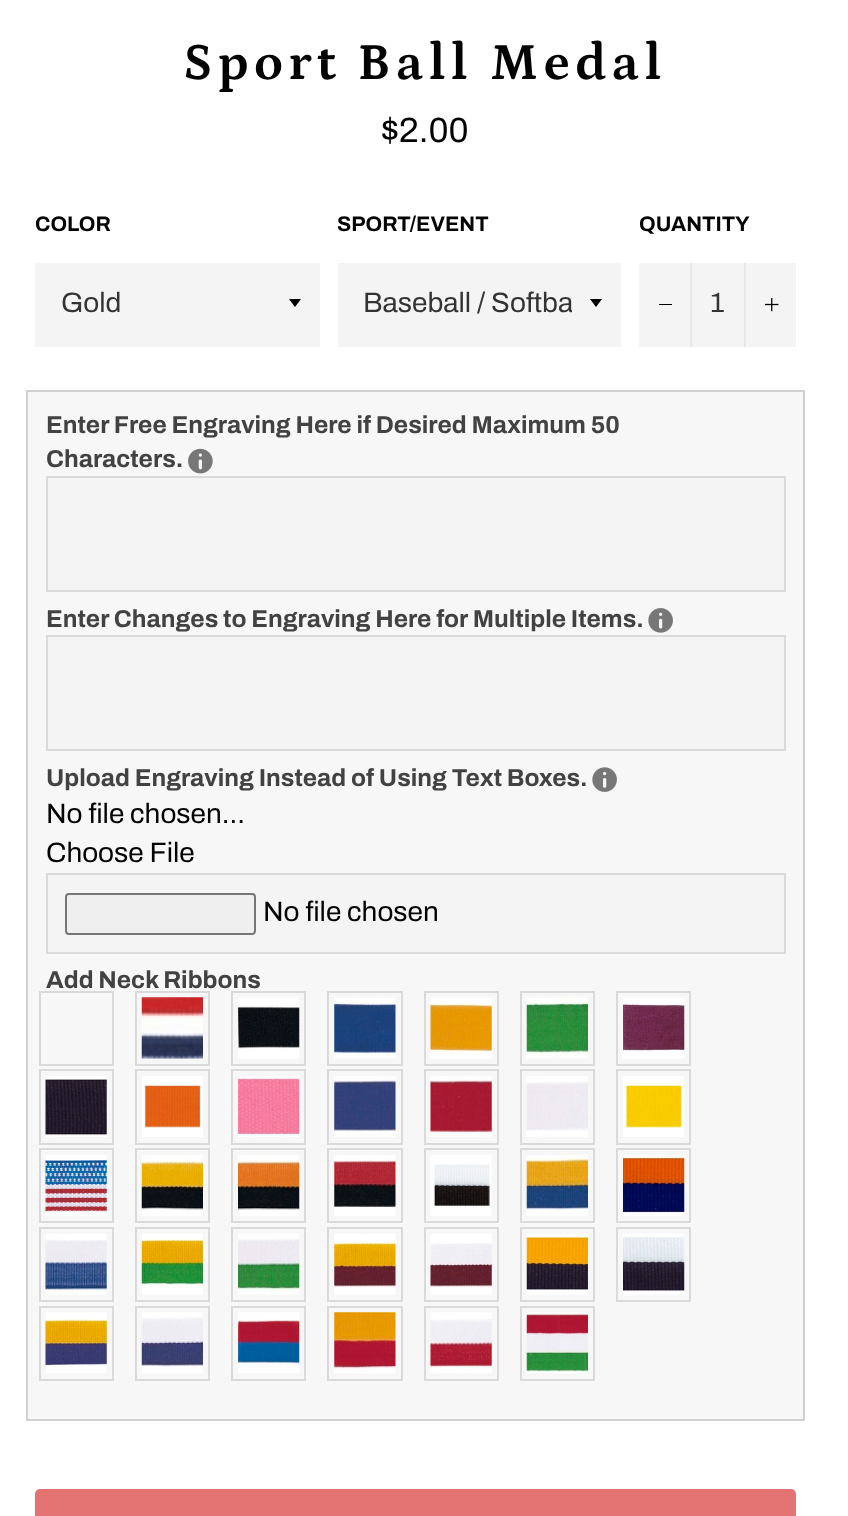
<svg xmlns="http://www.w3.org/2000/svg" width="848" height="1516">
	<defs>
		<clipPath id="clip1"><rect x="364" y="285" width="208" height="39" /></clipPath>
	</defs>
	<rect width="100%" height="100%" fill="#FFFFFF" />
	<text x="183" y="79" font-family="Petrona" font-size="52.5" font-weight="700" letter-spacing="5.25" fill="#030303">Sport Ball Medal</text>
	<text x="381" y="142" font-family="Archivo" font-size="35" fill="#030303">$2.00</text>
	<text x="35" y="231" font-family="Archivo" font-size="21" font-weight="700" fill="#030303">COLOR</text>
	<rect x="35" y="263" width="285" height="84" fill="#F4F4F4" />
	<path d="M289 299L295 307L301 299Z" fill="#000000" />
	<text x="61" y="312" font-family="Archivo" font-size="28" fill="#333333">Gold</text>
	<text x="337" y="231" font-family="Archivo" font-size="21" font-weight="700" fill="#030303">SPORT/EVENT</text>
	<rect x="338" y="263" width="283" height="84" fill="#F4F4F4" />
	<path d="M590 299L596 307L602 299Z" fill="#000000" />
	<g clip-path="url(#clip1)">
		<text x="363" y="312" font-family="Archivo" font-size="28" fill="#333333">Baseball / Softba</text>
	</g>
	<text x="639" y="231" font-family="Archivo" font-size="21" font-weight="700" fill="#030303">QUANTITY</text>
	<rect x="639" y="263" width="157" height="84" fill="#F4F4F4" />
	<rect x="690" y="263" width="2" height="84" fill="#E7E7E7" />
	<rect x="659" y="304" width="13" height="1" fill="#000000" />
	<text x="710" y="312" font-family="Archivo" font-size="28" fill="#333333">1</text>
	<rect x="744" y="263" width="2" height="84" fill="#E7E7E7" />
	<image x="765" y="298" width="14" height="14" href="assets/img1.png" />
	<rect x="27" y="391" width="777" height="1029" fill="#F7F7F7" stroke="#D1D1D1" stroke-width="2" />
	<g font-family="Archivo" font-size="24.5" font-weight="700" fill="#424242">
		<text x="46" y="433">Enter Free Engraving Here if Desired Maximum 50</text>
		<text x="46" y="467">Characters.</text>
	</g>
	<image x="188" y="448" width="25" height="26" href="assets/img2.png" />
	<rect x="47" y="477" width="738" height="114" fill="#F4F4F4" stroke="#DADADA" stroke-width="2" />
	<text x="46" y="627" font-family="Archivo" font-size="24.5" font-weight="700" fill="#424242">Enter Changes to Engraving Here for Multiple Items.</text>
	<image x="648" y="608" width="25" height="25" href="assets/img3.png" />
	<rect x="47" y="636" width="738" height="114" fill="#F4F4F4" stroke="#DADADA" stroke-width="2" />
	<text x="46" y="786" font-family="Archivo" font-size="24.5" font-weight="700" fill="#424242">Upload Engraving Instead of Using Text Boxes.</text>
	<image x="592" y="767" width="25" height="25" href="assets/img4.png" />
	<g font-family="Archivo" font-size="28" fill="#030303">
		<text x="46" y="823">No file chosen...</text>
		<text x="46" y="862">Choose File</text>
	</g>
	<rect x="47" y="874" width="738" height="79" fill="#F4F4F4" stroke="#DADADA" stroke-width="2" />
	<rect x="66" y="894" width="189" height="40" rx="3" fill="#EFEFEF" stroke="#767676" stroke-width="2" />
	<text x="263" y="921" font-family="Archivo" font-size="28" fill="#030303">No file chosen</text>
	<text x="46" y="988" font-family="Archivo" font-size="24.5" font-weight="700" fill="#424242">Add Neck Ribbons</text>
	<rect x="40" y="992" width="73" height="73" fill="none" stroke="#DADADA" stroke-width="2" />
	<image x="141" y="997" width="62" height="62" href="assets/img5.png" />
	<rect x="136" y="992" width="73" height="73" fill="none" stroke="#DADADA" stroke-width="2" />
	<image x="238" y="997" width="62" height="62" href="assets/img6.png" />
	<rect x="232" y="992" width="73" height="73" fill="none" stroke="#DADADA" stroke-width="2" />
	<image x="334" y="997" width="62" height="62" href="assets/img7.png" />
	<rect x="328" y="992" width="74" height="73" fill="none" stroke="#DADADA" stroke-width="2" />
	<image x="430" y="997" width="62" height="62" href="assets/img8.png" />
	<rect x="425" y="992" width="73" height="73" fill="none" stroke="#DADADA" stroke-width="2" />
	<image x="526" y="997" width="62" height="62" href="assets/img9.png" />
	<rect x="521" y="992" width="73" height="73" fill="none" stroke="#DADADA" stroke-width="2" />
	<image x="623" y="997" width="62" height="62" href="assets/img10.png" />
	<rect x="617" y="992" width="73" height="73" fill="none" stroke="#DADADA" stroke-width="2" />
	<image x="45" y="1076" width="62" height="61" href="assets/img11.png" />
	<rect x="40" y="1070" width="73" height="74" fill="none" stroke="#DADADA" stroke-width="2" />
	<image x="142" y="1076" width="61" height="61" href="assets/img12.png" />
	<rect x="136" y="1070" width="73" height="74" fill="none" stroke="#DADADA" stroke-width="2" />
	<image x="238" y="1076" width="62" height="61" href="assets/img13.png" />
	<rect x="232" y="1070" width="73" height="74" fill="none" stroke="#DADADA" stroke-width="2" />
	<image x="334" y="1076" width="62" height="61" href="assets/img14.png" />
	<rect x="328" y="1070" width="74" height="74" fill="none" stroke="#DADADA" stroke-width="2" />
	<image x="430" y="1076" width="62" height="61" href="assets/img15.png" />
	<rect x="425" y="1070" width="73" height="74" fill="none" stroke="#DADADA" stroke-width="2" />
	<image x="526" y="1076" width="62" height="61" href="assets/img16.png" />
	<rect x="521" y="1070" width="73" height="74" fill="none" stroke="#DADADA" stroke-width="2" />
	<image x="623" y="1076" width="61" height="61" href="assets/img17.png" />
	<rect x="617" y="1070" width="73" height="74" fill="none" stroke="#DADADA" stroke-width="2" />
	<image x="45" y="1155" width="62" height="61" href="assets/img18.png" />
	<rect x="40" y="1149" width="73" height="73" fill="none" stroke="#DADADA" stroke-width="2" />
	<image x="141" y="1155" width="62" height="61" href="assets/img19.png" />
	<rect x="136" y="1149" width="73" height="73" fill="none" stroke="#DADADA" stroke-width="2" />
	<image x="238" y="1155" width="62" height="61" href="assets/img20.png" />
	<rect x="232" y="1149" width="73" height="73" fill="none" stroke="#DADADA" stroke-width="2" />
	<image x="334" y="1155" width="62" height="61" href="assets/img21.png" />
	<rect x="328" y="1149" width="74" height="73" fill="none" stroke="#DADADA" stroke-width="2" />
	<image x="430" y="1155" width="62" height="61" href="assets/img22.png" />
	<rect x="425" y="1149" width="73" height="73" fill="none" stroke="#DADADA" stroke-width="2" />
	<image x="526" y="1155" width="62" height="61" href="assets/img23.png" />
	<rect x="521" y="1149" width="73" height="73" fill="none" stroke="#DADADA" stroke-width="2" />
	<image x="623" y="1155" width="62" height="61" href="assets/img24.png" />
	<rect x="617" y="1149" width="73" height="73" fill="none" stroke="#DADADA" stroke-width="2" />
	<image x="45" y="1233" width="62" height="62" href="assets/img25.png" />
	<rect x="40" y="1228" width="73" height="73" fill="none" stroke="#DADADA" stroke-width="2" />
	<image x="141" y="1233" width="62" height="62" href="assets/img26.png" />
	<rect x="136" y="1228" width="73" height="73" fill="none" stroke="#DADADA" stroke-width="2" />
	<image x="238" y="1233" width="62" height="62" href="assets/img27.png" />
	<rect x="232" y="1228" width="73" height="73" fill="none" stroke="#DADADA" stroke-width="2" />
	<image x="334" y="1233" width="62" height="62" href="assets/img28.png" />
	<rect x="328" y="1228" width="74" height="73" fill="none" stroke="#DADADA" stroke-width="2" />
	<image x="430" y="1233" width="62" height="62" href="assets/img29.png" />
	<rect x="425" y="1228" width="73" height="73" fill="none" stroke="#DADADA" stroke-width="2" />
	<image x="526" y="1233" width="62" height="62" href="assets/img30.png" />
	<rect x="521" y="1228" width="73" height="73" fill="none" stroke="#DADADA" stroke-width="2" />
	<image x="623" y="1233" width="62" height="62" href="assets/img31.png" />
	<rect x="617" y="1228" width="73" height="73" fill="none" stroke="#DADADA" stroke-width="2" />
	<image x="45" y="1312" width="62" height="62" href="assets/img32.png" />
	<rect x="40" y="1307" width="73" height="73" fill="none" stroke="#DADADA" stroke-width="2" />
	<image x="141" y="1312" width="62" height="62" href="assets/img33.png" />
	<rect x="136" y="1307" width="73" height="73" fill="none" stroke="#DADADA" stroke-width="2" />
	<image x="238" y="1312" width="62" height="62" href="assets/img34.png" />
	<rect x="232" y="1307" width="73" height="73" fill="none" stroke="#DADADA" stroke-width="2" />
	<image x="334" y="1312" width="62" height="62" href="assets/img35.png" />
	<rect x="328" y="1307" width="74" height="73" fill="none" stroke="#DADADA" stroke-width="2" />
	<image x="430" y="1312" width="62" height="62" href="assets/img36.png" />
	<rect x="425" y="1307" width="73" height="73" fill="none" stroke="#DADADA" stroke-width="2" />
	<image x="526" y="1312" width="62" height="62" href="assets/img37.png" />
	<rect x="521" y="1307" width="73" height="73" fill="none" stroke="#DADADA" stroke-width="2" />
	<rect x="35" y="1489" width="761" height="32" rx="5" fill="#E47474" />
</svg>
